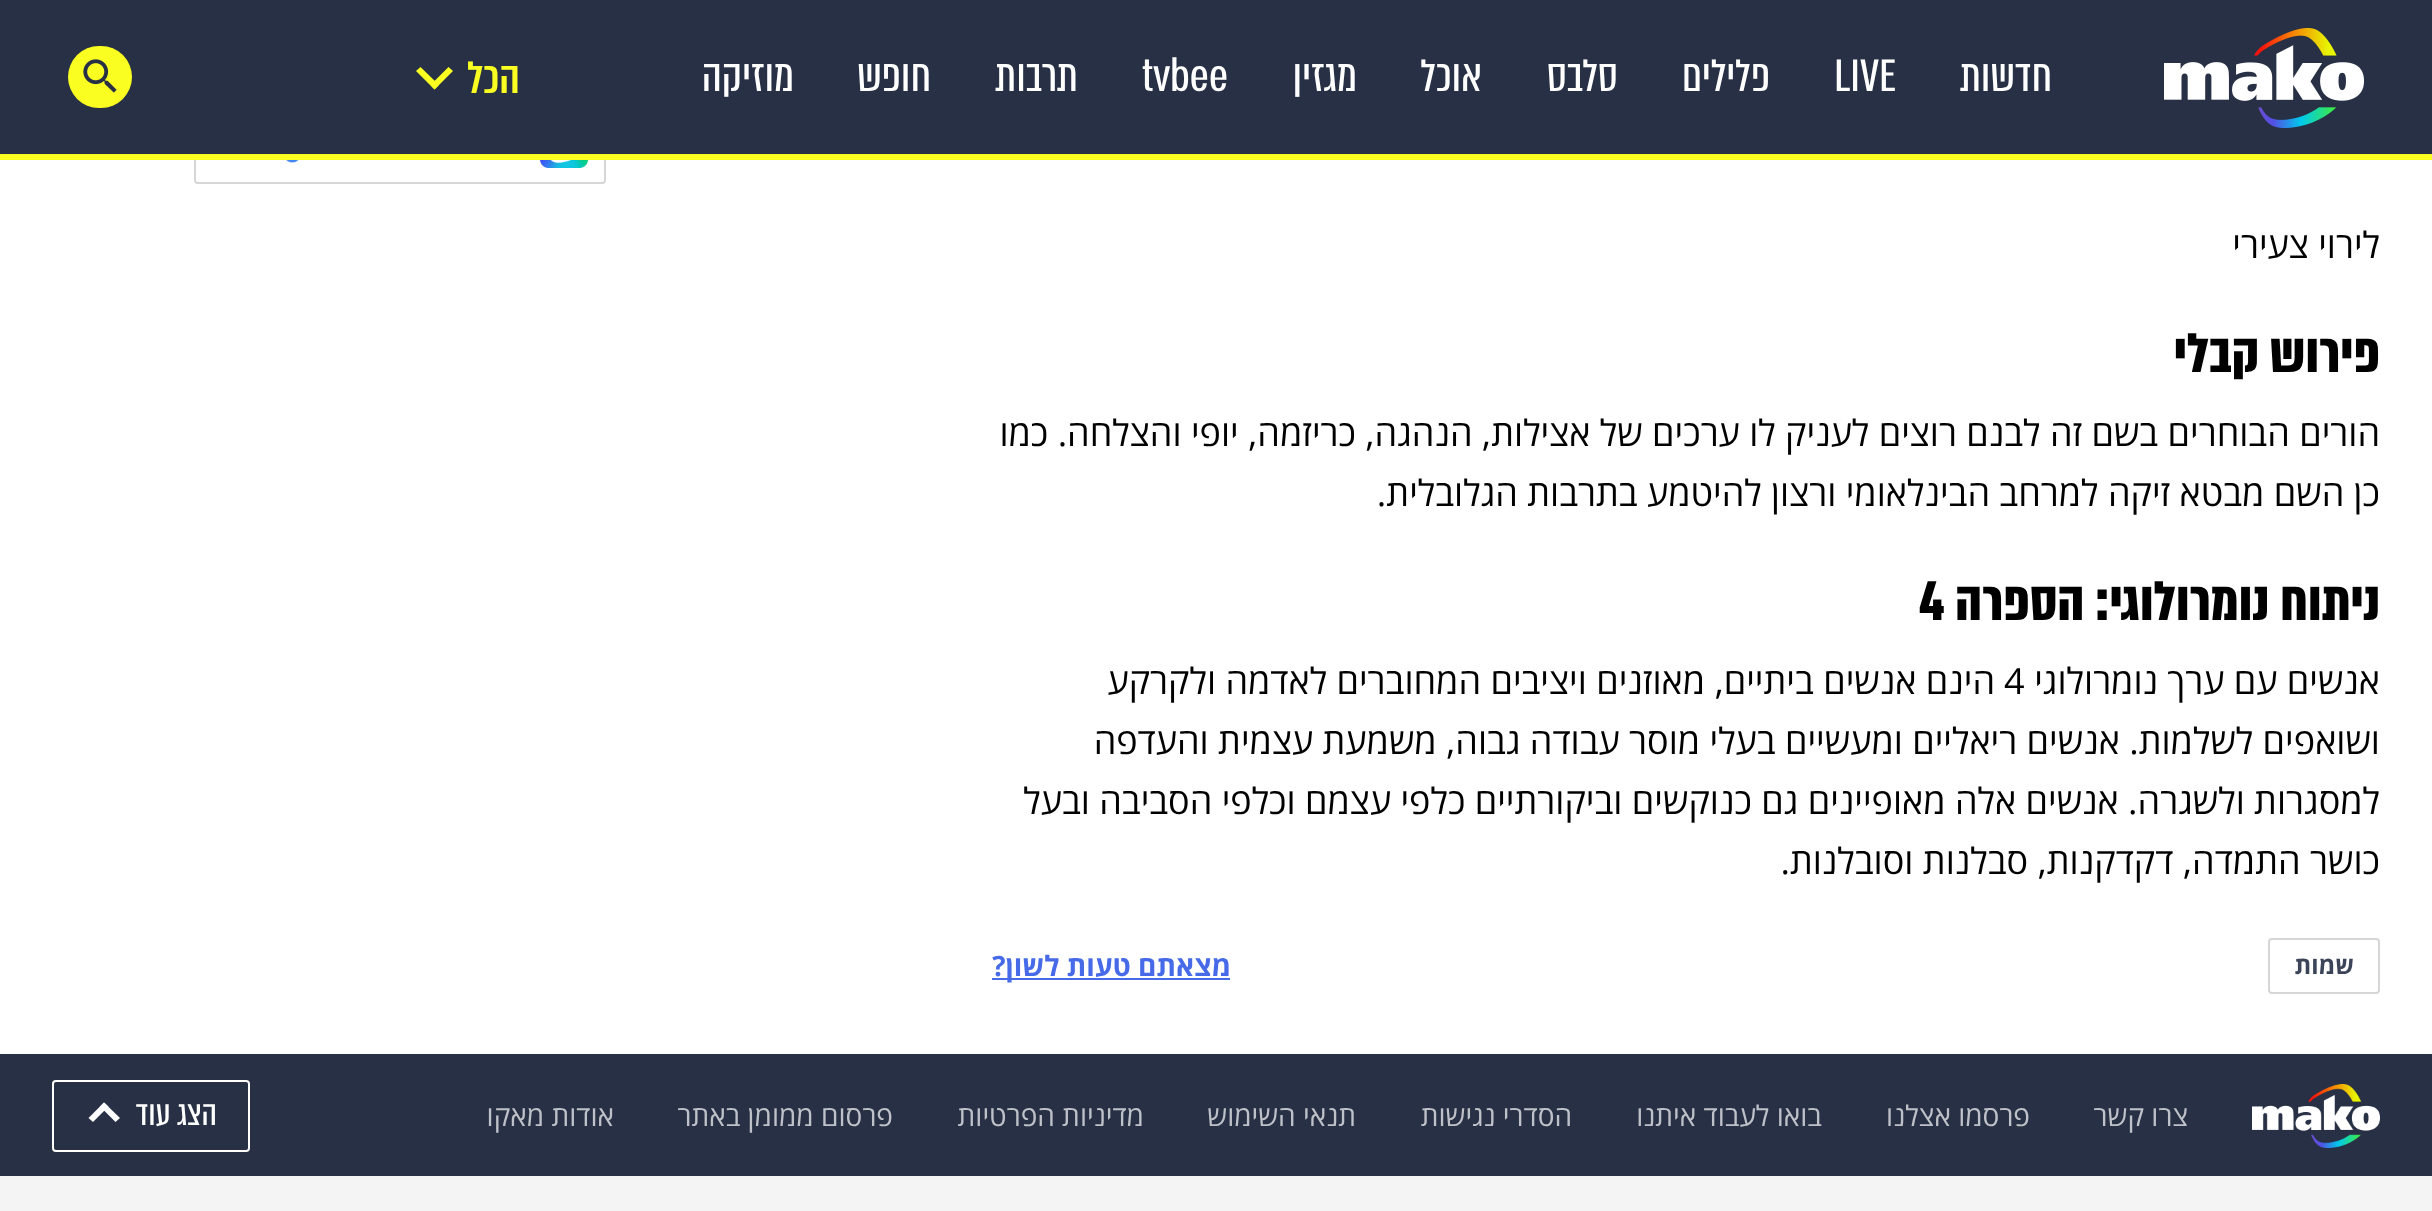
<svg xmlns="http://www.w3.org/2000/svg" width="2432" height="1211">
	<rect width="100%" height="100%" fill="#F4F4F4" />
	<rect x="0" y="160" width="2432" height="894" fill="#FFFFFF" />
	<rect x="195" y="105" width="410" height="78" rx="3" fill="none" stroke="#D6D6D6" stroke-width="2" />
	<rect x="0" y="0" width="2432" height="154" fill="#273044" />
	<image x="2164" y="28" width="200" height="100" href="assets/img1.png" />
	<text x="2052" y="91" font-family="'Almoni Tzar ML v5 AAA'" font-size="52" direction="rtl" fill="#FFFFFF">חדשות</text>
	<text x="1834" y="91" font-family="'Almoni Tzar ML v5 AAA'" font-size="52" fill="#FFFFFF">LIVE</text>
	<g font-family="'Almoni Tzar ML v5 AAA'" font-size="52" direction="rtl" fill="#FFFFFF">
		<text x="1770" y="91">פלילים</text>
		<text x="1618" y="91">סלבס</text>
		<text x="1482" y="91">אוכל</text>
		<text x="1357" y="91">מגזין</text>
	</g>
	<text x="1142" y="91" font-family="'Almoni Tzar ML v5 AAA'" font-size="52" fill="#FFFFFF">tvbee</text>
	<g font-family="'Almoni Tzar ML v5 AAA'" font-size="52" direction="rtl" fill="#FFFFFF">
		<text x="1078" y="91">תרבות</text>
		<text x="931" y="91">חופש</text>
		<text x="794" y="91">מוזיקה</text>
	</g>
	<text x="520" y="93" font-family="'Almoni Tzar ML v5 AAA'" font-size="52" font-weight="500" direction="rtl" fill="#FAFF21">הכל</text>
	<path d="M448.5 67L453 71L434.5 89.5L430.5 85Z" fill="#FAFF21" />
	<path d="M420.5 67L439 85L434.5 89.5L416 71Z" fill="#FAFF21" />
	<rect x="68" y="46" width="64" height="62" rx="31" fill="#FAFF21" />
	<image x="83" y="59" width="34" height="34" href="assets/img2.png" />
	<rect x="0" y="154" width="2432" height="6" fill="#FAFF21" />
	<image x="540" y="160" width="48" height="8" href="assets/img3.png" />
	<image x="286" y="160" width="13" height="3" href="assets/img4.png" />
	<text x="2380" y="258" font-family="Open Sans" font-size="36" direction="rtl" fill="#000000">לירוי צעירי</text>
	<text x="2380" y="372" font-family="'Almoni Tzar ML v5 AAA'" font-size="64" font-weight="700" direction="rtl" fill="#000000">פירוש קבלי</text>
	<g font-family="Open Sans" font-size="36" direction="rtl" fill="#000000">
		<text x="2380" y="446">הורים הבוחרים בשם זה לבנם רוצים לעניק לו ערכים של אצילות, הנהגה, כריזמה, יופי והצלחה. כמו</text>
		<text x="2380" y="506">כן השם מבטא זיקה למרחב הבינלאומי ורצון להיטמע בתרבות הגלובלית.</text>
	</g>
	<text x="2380" y="620" font-family="'Almoni Tzar ML v5 AAA'" font-size="64" font-weight="700" direction="rtl" fill="#000000">ניתוח נומרולוגי: הספרה</text>
	<text x="1919" y="620" font-family="'Almoni Tzar ML v5 AAA'" font-size="64" font-weight="700" fill="#000000">4</text>
	<text x="2380" y="694" font-family="Open Sans" font-size="36" direction="rtl" fill="#000000">אנשים עם ערך נומרולוגי</text>
	<text x="2004" y="694" font-family="Open Sans" font-size="36" fill="#000000">4</text>
	<g font-family="Open Sans" font-size="36" direction="rtl" fill="#000000">
		<text x="1995" y="694">הינם אנשים ביתיים, מאוזנים ויציבים המחוברים לאדמה ולקרקע</text>
		<text x="2380" y="754">ושואפים לשלמות. אנשים ריאליים ומעשיים בעלי מוסר עבודה גבוה, משמעת עצמית והעדפה</text>
		<text x="2380" y="814">למסגרות ולשגרה. אנשים אלה מאופיינים גם כנוקשים וביקורתיים כלפי עצמם וכלפי הסביבה ובעל</text>
		<text x="2380" y="874">כושר התמדה, דקדקנות, סבלנות וסובלנות.</text>
	</g>
	<rect x="2269" y="939" width="110" height="54" rx="3" fill="none" stroke="#D6D6D6" stroke-width="2" />
	<text x="2354" y="974" font-family="Open Sans" font-size="24" font-weight="700" direction="rtl" fill="#3B4458">שמות</text>
	<rect x="992" y="978" width="238" height="2" fill="#466AE8" />
	<text x="1231" y="976" font-family="Open Sans" font-size="28" font-weight="700" direction="rtl" fill="#466AE8">מצאתם טעות לשון?</text>
	<rect x="0" y="1054" width="2432" height="122" fill="#273044" />
	<image x="2252" y="1084" width="128" height="64" href="assets/img5.png" />
	<g font-family="Open Sans" font-size="28" direction="rtl" fill="#BEC1C7">
		<text x="2188" y="1126">צרו קשר</text>
		<text x="2030" y="1126">פרסמו אצלנו</text>
		<text x="1822" y="1126">בואו לעבוד איתנו</text>
		<text x="1572" y="1126">הסדרי נגישות</text>
		<text x="1356" y="1126">תנאי השימוש</text>
		<text x="1144" y="1126">מדיניות הפרטיות</text>
		<text x="893" y="1126">פרסום ממומן באתר</text>
		<text x="614" y="1126">אודות מאקו</text>
	</g>
	<rect x="53" y="1081" width="196" height="70" rx="3" fill="none" stroke="#FFFFFF" stroke-width="2" />
	<text x="217" y="1125" font-family="'Almoni Tzar ML v5 AAA'" font-size="40" direction="rtl" fill="#FFFFFF">הצג עוד</text>
	<path d="M93 1122L88.5 1118L104 1102.5L108.5 1106.5Z" fill="#FFFFFF" />
	<path d="M115.5 1122L100 1106.5L104 1102.5L120 1118Z" fill="#FFFFFF" />
</svg>
